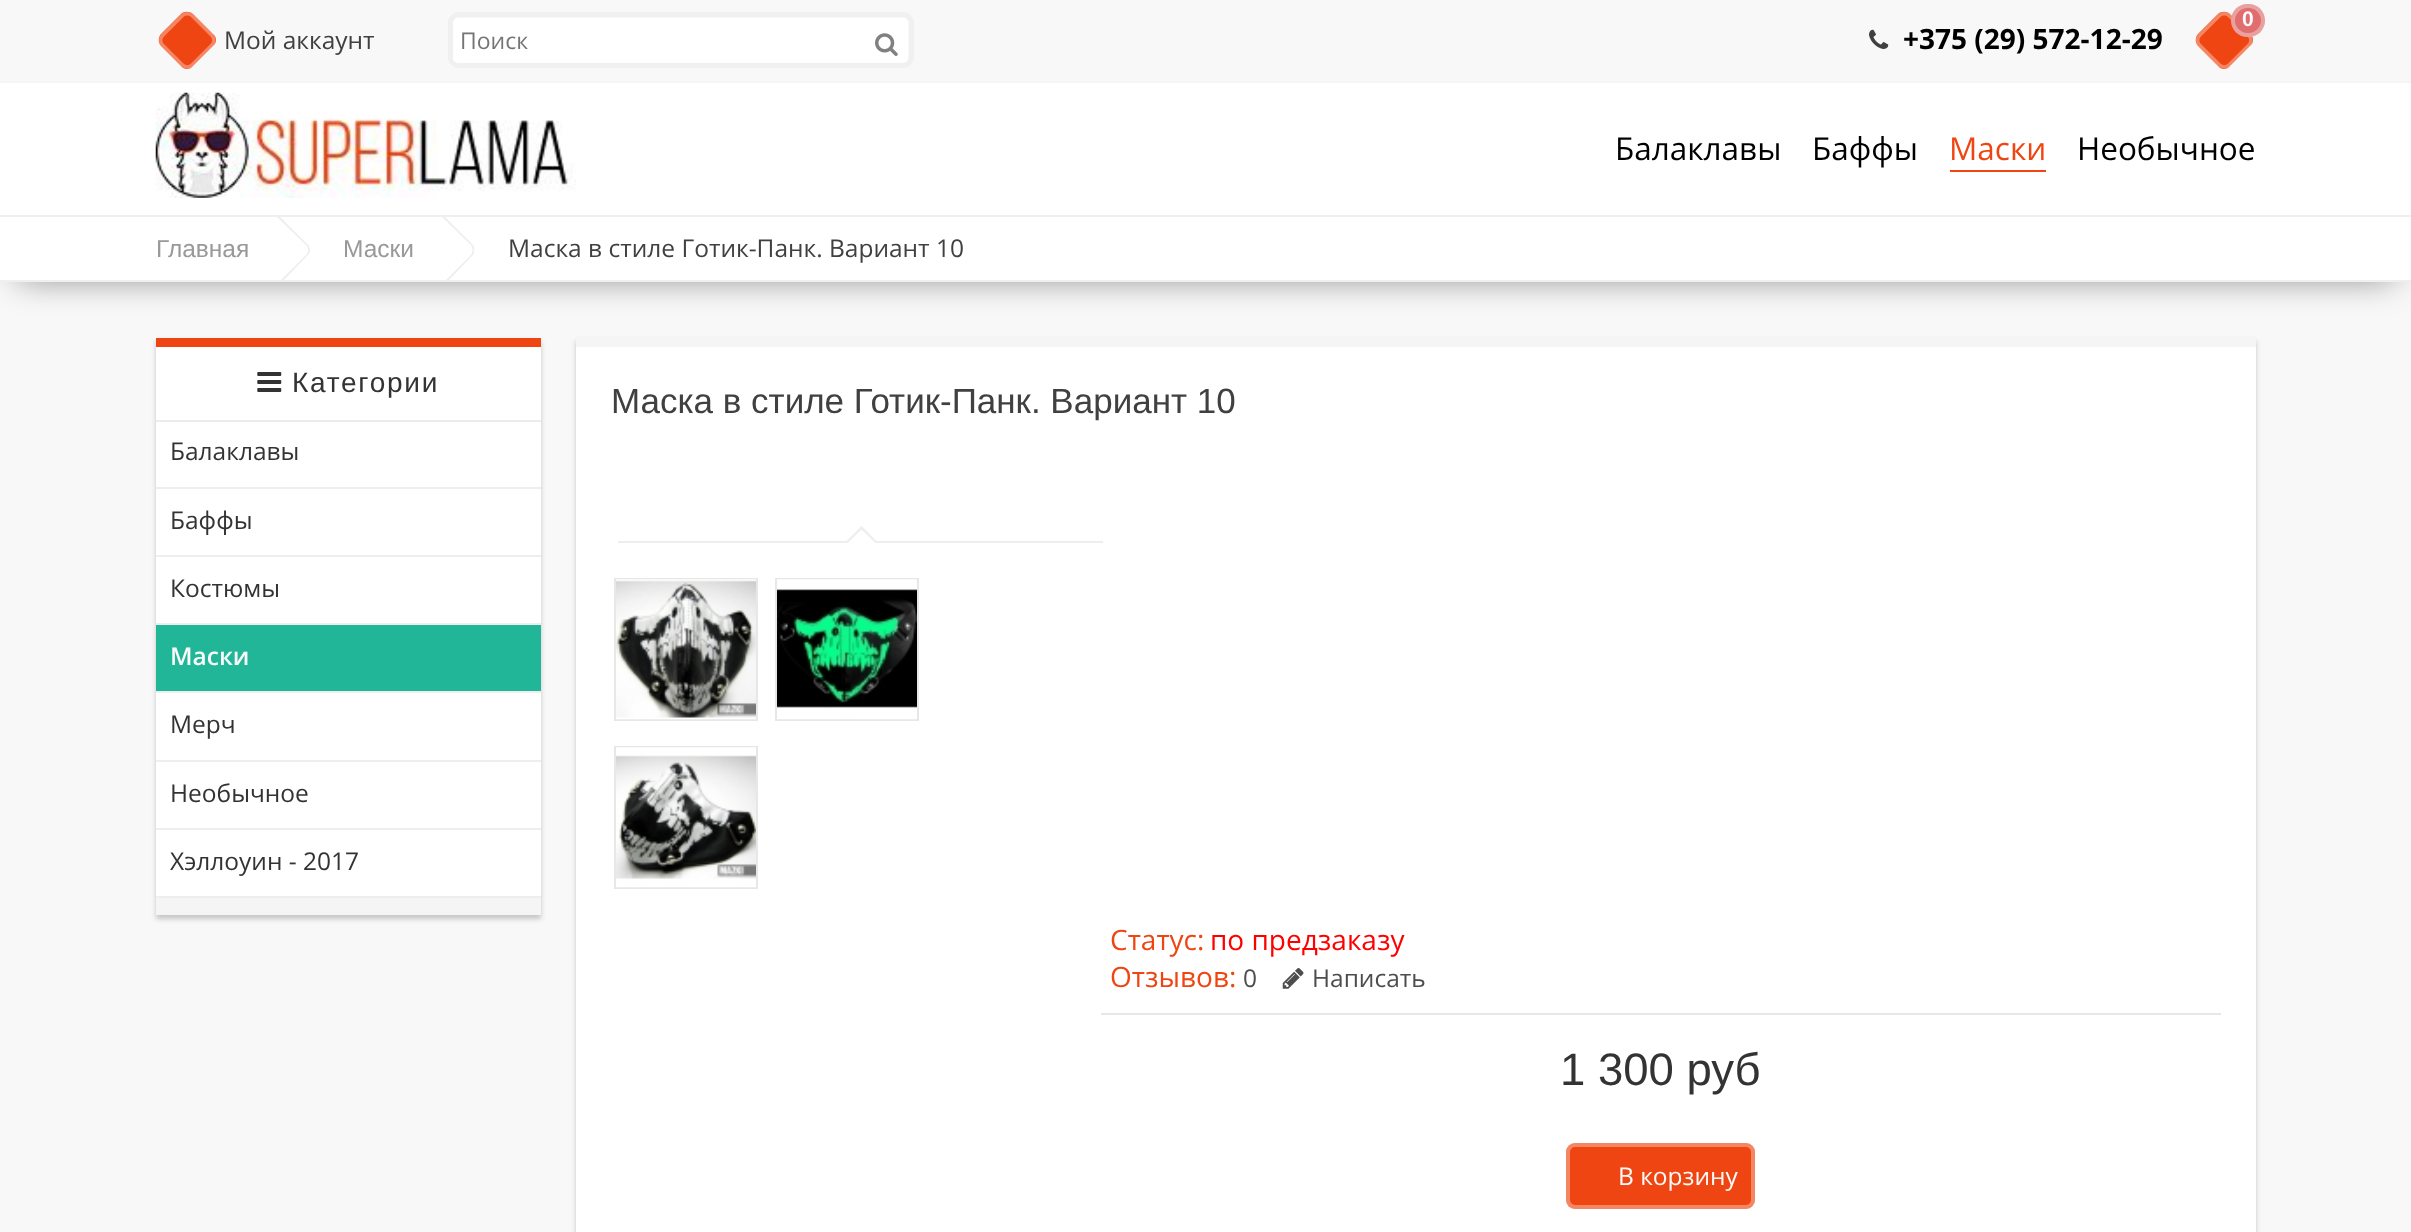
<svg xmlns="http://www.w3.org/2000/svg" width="2411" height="1232">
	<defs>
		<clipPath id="clip1"><rect x="147" y="217" width="2118" height="63" /></clipPath>
	</defs>
	<rect width="100%" height="100%" fill="#F8F8F8" />
	<rect x="18" y="245" width="2376" height="32" fill="#000000" fill-opacity="0.51" filter="blur(17.5px)" />
	<rect x="0" y="83" width="2411" height="132" fill="#FFFFFF" />
	<rect x="0" y="81" width="2411" height="2" fill="#F5F5F5" />
	<path d="M2230 14L2250 34C2254 37 2254 43 2250 46L2230 66C2227 70 2221 70 2218 66L2198 46C2195 43 2195 37 2198 34L2218 14C2221 11 2227 11 2230 14Z" fill="#EF4512" />
	<path d="M2229 15.5L2249 35.5C2251.5 38 2251.5 42.5 2249 45L2229 65C2226.5 67.5 2222 67.5 2219.5 65L2199.5 45C2197 42.5 2197 38 2199.5 35.5L2219.5 15.5C2222 13 2226.5 13 2229 15.5Z" fill="none" stroke="#FFFFFF" stroke-opacity="0.35" stroke-width="3.5" />
	<rect x="2231" y="4" width="34" height="33" rx="16.5" fill="#E16E6E" />
	<rect x="2233" y="6" width="30" height="29" rx="14.5" fill="none" stroke="#FFFFFF" stroke-opacity="0.35" stroke-width="4" />
	<text x="2242" y="26" font-family="Liberation Sans" font-size="21" font-weight="700" fill="#FAFAFA">0</text>
	<path d="M193 14L213 34C217 37 217 43 213 46L193 66C190 70 184 70 181 66L161 46C158 43 158 37 161 34L181 14C184 11 190 11 193 14Z" fill="#EF4512" />
	<path d="M192 15.5L212 35.5C214.5 38 214.5 42.5 212 45L192 65C189.5 67.5 185 67.5 182.5 65L162.5 45C160 42.5 160 38 162.5 35.5L182.5 15.5C185 13 189.5 13 192 15.5Z" fill="none" stroke="#FFFFFF" stroke-opacity="0.35" stroke-width="3.5" />
	<text x="224" y="49" font-family="Open Sans" font-size="24.5" fill="#404040">Мой аккаунт</text>
	<rect x="450.5" y="14.5" width="461" height="51" rx="8.5" fill="none" stroke="#F0F0F0" stroke-width="5" />
	<rect x="454" y="19" width="453" height="43" rx="4" fill="#FFFFFF" stroke="#FFFFFF" stroke-width="2" />
	<text x="460" y="49" font-family="Open Sans" font-size="23" fill="#757575">Поиск</text>
	<image x="875" y="33" width="23" height="23" href="assets/img1.png" />
	<image x="1869" y="29" width="20" height="20" href="assets/img2.png" />
	<text x="1903" y="49" font-family="Open Sans" font-size="28" font-weight="700" fill="#000000">+375 (29) 572-12-29</text>
	<image x="155" y="92" width="421" height="106" href="assets/img3.png" />
	<g font-family="Open Sans" font-size="31.5" fill="#000000">
		<text x="1615" y="160">Балаклавы</text>
		<text x="1812" y="160">Баффы</text>
	</g>
	<rect x="1950" y="170" width="96" height="2" fill="#EF4512" />
	<text x="1949" y="160" font-family="Open Sans" font-size="31.5" fill="#EF4512">Маски</text>
	<text x="2077" y="160" font-family="Open Sans" font-size="31.5" fill="#000000">Необычное</text>
	<rect x="0" y="217" width="2411" height="63" fill="#FFFFFF" />
	<rect x="0" y="215" width="2411" height="2" fill="#EFEFEF" />
	<rect x="0" y="280" width="2411" height="2" fill="#EFEFEF" />
	<g clip-path="url(#clip1)">
		<path d="M280 217L307 244C311 247 311 253 307 256L280 284C277 287 271 287 268 284L240 256C237 253 237 247 240 244L268 217C271 213 277 213 280 217Z" fill="#EEEEEE" />
		<path d="M276 216L306 245C309 248 309 252 306 255L276 285C273 288 269 288 266 285L236 255C234 252 234 248 236 245L266 216C269 213 273 213 276 216Z" fill="#FFFFFF" />
	</g>
	<text x="156" y="257" font-family="Liberation Sans" font-size="24.5" fill="#999999">Главная</text>
	<g clip-path="url(#clip1)">
		<path d="M445 217L472 244C475 247 475 253 472 256L445 284C441 287 436 287 432 284L405 256C402 253 402 247 405 244L432 217C436 213 441 213 445 217Z" fill="#EEEEEE" />
		<path d="M441 216L471 245C473 248 473 252 471 255L441 285C438 288 434 288 431 285L401 255C399 252 399 248 401 245L431 216C434 213 438 213 441 216Z" fill="#FFFFFF" />
	</g>
	<text x="343" y="257" font-family="Liberation Sans" font-size="24.5" fill="#999999">Маски</text>
	<text x="508" y="257" font-family="Open Sans" font-size="24.5" fill="#404040">Маска в стиле Готик-Панк. Вариант 10</text>
	<rect x="156" y="341" width="385" height="84" fill="#000000" fill-opacity="0.2" filter="blur(2.5px)" />
	<rect x="156" y="347" width="385" height="73" fill="#FFFFFF" />
	<rect x="156" y="338" width="385" height="9" fill="#EF4512" />
	<rect x="156" y="420" width="385" height="2" fill="#EEEEEE" />
	<image x="257" y="372" width="25" height="20" href="assets/img4.png" />
	<text x="292" y="392" font-family="Liberation Sans" font-size="28" letter-spacing="1.75" fill="#333333">Категории</text>
	<rect x="156" y="425" width="385" height="494" fill="#000000" fill-opacity="0.2" filter="blur(2.5px)" />
	<rect x="156" y="422" width="385" height="474" fill="#FFFFFF" />
	<rect x="156" y="898" width="385" height="17" fill="#F5F5F5" />
	<rect x="156" y="487" width="385" height="2" fill="#EEEEEE" />
	<text x="170" y="460" font-family="Open Sans" font-size="24.5" fill="#333333">Балаклавы</text>
	<rect x="156" y="555" width="385" height="2" fill="#EEEEEE" />
	<g font-family="Open Sans" font-size="24.5" fill="#333333">
		<text x="170" y="529">Баффы</text>
		<text x="170" y="597">Костюмы</text>
	</g>
	<rect x="156" y="625" width="385" height="66" fill="#22B699" />
	<rect x="156" y="623" width="385" height="2" fill="#EEEEEE" />
	<rect x="156" y="691" width="385" height="2" fill="#EEEEEE" />
	<text x="170" y="665" font-family="Open Sans" font-size="24.5" font-weight="600" fill="#FAFAFA">Маски</text>
	<rect x="156" y="760" width="385" height="2" fill="#EEEEEE" />
	<text x="170" y="733" font-family="Open Sans" font-size="24.5" fill="#333333">Мерч</text>
	<rect x="156" y="828" width="385" height="2" fill="#EEEEEE" />
	<text x="170" y="802" font-family="Open Sans" font-size="24.5" fill="#333333">Необычное</text>
	<rect x="156" y="896" width="385" height="2" fill="#EEEEEE" />
	<text x="170" y="870" font-family="Open Sans" font-size="24.5" fill="#333333">Хэллоуин - 2017</text>
	<rect x="576" y="341" width="1680" height="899" fill="#000000" fill-opacity="0.2" filter="blur(2.5px)" />
	<rect x="576" y="347" width="1680" height="885" fill="#FFFFFF" />
	<rect x="576" y="338" width="1680" height="9" fill="#F5F5F5" />
	<text x="611" y="413" font-family="Liberation Sans" font-size="35" fill="#404040">Маска в стиле Готик-Панк. Вариант 10</text>
	<rect x="618" y="541" width="485" height="2" fill="#EEEEEE" />
	<path d="M861.5 526L876.5 541L861.5 555.5L846.5 541Z" fill="#EEEEEE" />
	<path d="M861.5 529.5L876.5 544L861.5 559L846.5 544Z" fill="#FFFFFF" />
	<rect x="615" y="579" width="142" height="141" fill="none" stroke="#E7E7E7" stroke-width="2" />
	<image x="616" y="579" width="140" height="141" href="assets/img5.png" />
	<rect x="776" y="579" width="142" height="141" fill="none" stroke="#E7E7E7" stroke-width="2" />
	<image x="777" y="579" width="140" height="141" href="assets/img6.png" />
	<rect x="615" y="747" width="142" height="141" fill="none" stroke="#E7E7E7" stroke-width="2" />
	<image x="616" y="747" width="140" height="141" href="assets/img7.png" />
	<rect x="1101" y="1013" width="1120" height="2" fill="#E7E7E7" />
	<text x="1110" y="950" font-family="Open Sans" font-size="28" fill="#EF4512">Статус:</text>
	<text x="1210" y="950" font-family="Open Sans" font-size="28" fill="#FF0000">по предзаказу</text>
	<text x="1110" y="987" font-family="Open Sans" font-size="28" fill="#EF4512">Отзывов:</text>
	<text x="1243" y="987" font-family="Open Sans" font-size="24.5" fill="#4D4D4D">0</text>
	<image x="1282" y="968" width="22" height="21" href="assets/img8.png" />
	<text x="1312" y="987" font-family="Open Sans" font-size="24.5" fill="#4D4D4D">Написать</text>
	<text x="1560" y="1085" font-family="Liberation Sans" font-size="45.5" fill="#333333">1 300 руб</text>
	<rect x="1566" y="1143" width="189" height="66" rx="9" fill="#EF4512" />
	<rect x="1568" y="1145" width="185" height="62" rx="7" fill="none" stroke="#FFFFFF" stroke-opacity="0.35" stroke-width="4" />
	<text x="1618" y="1185" font-family="Open Sans" font-size="24.5" fill="#FAFAFA">В корзину</text>
</svg>
